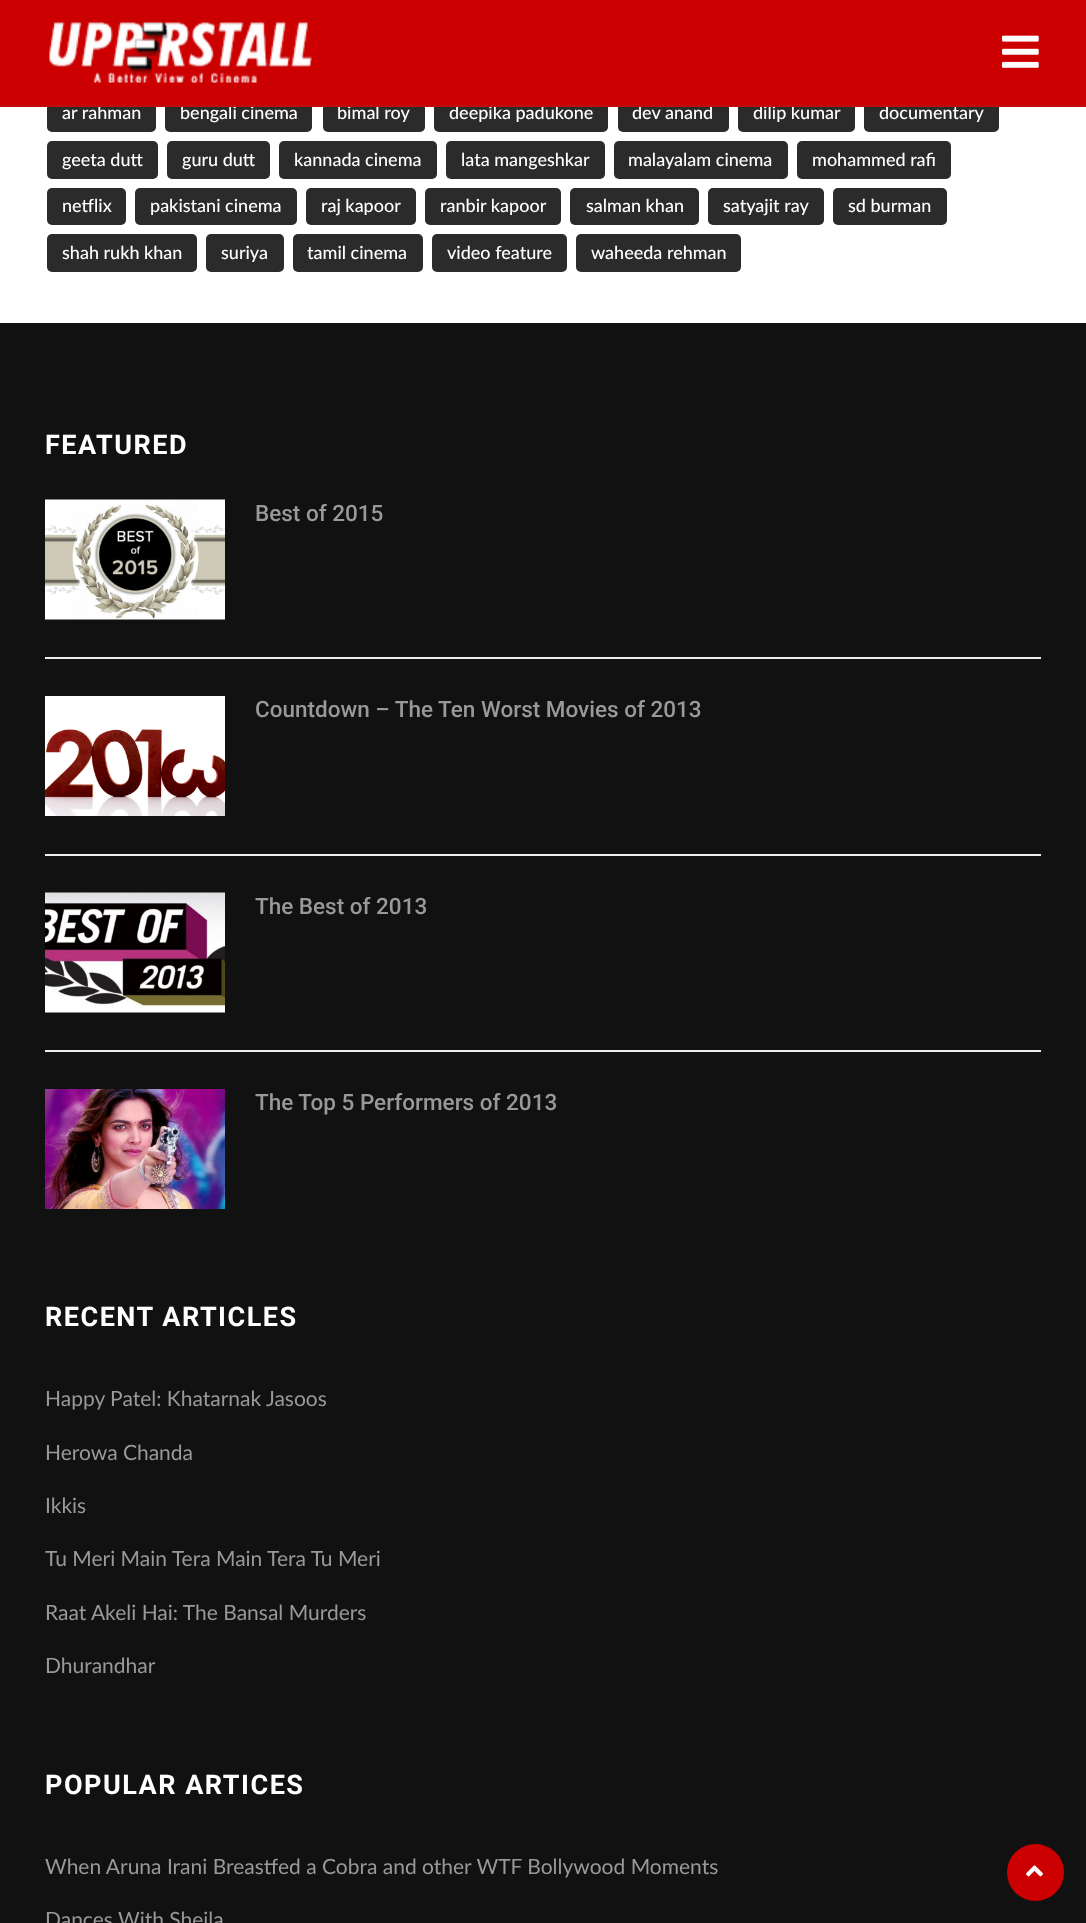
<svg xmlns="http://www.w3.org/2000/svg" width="1086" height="1923">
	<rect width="100%" height="100%" fill="#FFFFFF" />
	<rect x="47" y="95" width="109" height="37" rx="5" fill="#2B2B2B" />
	<rect x="165" y="95" width="147" height="37" rx="5" fill="#2B2B2B" />
	<rect x="323" y="95" width="102" height="37" rx="5" fill="#2B2B2B" />
	<rect x="434" y="95" width="174" height="37" rx="5" fill="#2B2B2B" />
	<rect x="618" y="95" width="111" height="37" rx="5" fill="#2B2B2B" />
	<rect x="738" y="95" width="117" height="37" rx="5" fill="#2B2B2B" />
	<rect x="864" y="95" width="135" height="37" rx="5" fill="#2B2B2B" />
	<rect x="0" y="0" width="1086" height="105" fill="#CC0000" />
	<g font-family="Lato" font-size="18" font-weight="500" fill="#FFFFFF">
		<text x="62" y="119">ar rahman</text>
		<text x="180" y="119">bengali cinema</text>
		<text x="337" y="119">bimal roy</text>
		<text x="449" y="119">deepika padukone</text>
		<text x="632" y="119">dev anand</text>
		<text x="753" y="119">dilip kumar</text>
		<text x="879" y="119">documentary</text>
	</g>
	<rect x="0" y="105" width="1086" height="2" fill="#C20A0A" />
	<image x="48" y="22" width="264" height="61" href="assets/img1.png" />
	<image x="1002" y="35" width="37" height="33" href="assets/img2.png" />
	<rect x="47" y="141" width="111" height="38" rx="5" fill="#2B2B2B" />
	<text x="62" y="166" font-family="Lato" font-size="18" font-weight="500" fill="#FFFFFF">geeta dutt</text>
	<rect x="167" y="141" width="103" height="38" rx="5" fill="#2B2B2B" />
	<text x="182" y="166" font-family="Lato" font-size="18" font-weight="500" fill="#FFFFFF">guru dutt</text>
	<rect x="279" y="141" width="158" height="38" rx="5" fill="#2B2B2B" />
	<text x="294" y="166" font-family="Lato" font-size="18" font-weight="500" fill="#FFFFFF">kannada cinema</text>
	<rect x="446" y="141" width="159" height="38" rx="5" fill="#2B2B2B" />
	<text x="461" y="166" font-family="Lato" font-size="18" font-weight="500" fill="#FFFFFF">lata mangeshkar</text>
	<rect x="614" y="141" width="174" height="38" rx="5" fill="#2B2B2B" />
	<text x="628" y="166" font-family="Lato" font-size="18" font-weight="500" fill="#FFFFFF">malayalam cinema</text>
	<rect x="797" y="141" width="154" height="38" rx="5" fill="#2B2B2B" />
	<text x="812" y="166" font-family="Lato" font-size="18" font-weight="500" fill="#FFFFFF">mohammed rafi</text>
	<rect x="47" y="188" width="79" height="37" rx="5" fill="#2B2B2B" />
	<text x="62" y="212" font-family="Lato" font-size="18" font-weight="500" fill="#FFFFFF">netflix</text>
	<rect x="135" y="188" width="162" height="37" rx="5" fill="#2B2B2B" />
	<text x="150" y="212" font-family="Lato" font-size="18" font-weight="500" fill="#FFFFFF">pakistani cinema</text>
	<rect x="306" y="188" width="110" height="37" rx="5" fill="#2B2B2B" />
	<text x="321" y="212" font-family="Lato" font-size="18" font-weight="500" fill="#FFFFFF">raj kapoor</text>
	<rect x="425" y="188" width="136" height="37" rx="5" fill="#2B2B2B" />
	<text x="440" y="212" font-family="Lato" font-size="18" font-weight="500" fill="#FFFFFF">ranbir kapoor</text>
	<rect x="570" y="188" width="129" height="37" rx="5" fill="#2B2B2B" />
	<text x="586" y="212" font-family="Lato" font-size="18" font-weight="500" fill="#FFFFFF">salman khan</text>
	<rect x="708" y="188" width="116" height="37" rx="5" fill="#2B2B2B" />
	<text x="723" y="212" font-family="Lato" font-size="18" font-weight="500" fill="#FFFFFF">satyajit ray</text>
	<rect x="833" y="188" width="114" height="37" rx="5" fill="#2B2B2B" />
	<text x="848" y="212" font-family="Lato" font-size="18" font-weight="500" fill="#FFFFFF">sd burman</text>
	<rect x="47" y="234" width="150" height="38" rx="5" fill="#2B2B2B" />
	<text x="62" y="259" font-family="Lato" font-size="18" font-weight="500" fill="#FFFFFF">shah rukh khan</text>
	<rect x="206" y="234" width="78" height="38" rx="5" fill="#2B2B2B" />
	<text x="221" y="259" font-family="Lato" font-size="18" font-weight="500" fill="#FFFFFF">suriya</text>
	<rect x="293" y="234" width="130" height="38" rx="5" fill="#2B2B2B" />
	<text x="307" y="259" font-family="Lato" font-size="18" font-weight="500" fill="#FFFFFF">tamil cinema</text>
	<rect x="432" y="234" width="135" height="38" rx="5" fill="#2B2B2B" />
	<text x="447" y="259" font-family="Lato" font-size="18" font-weight="500" fill="#FFFFFF">video feature</text>
	<rect x="576" y="234" width="165" height="38" rx="5" fill="#2B2B2B" />
	<text x="591" y="259" font-family="Lato" font-size="18" font-weight="500" fill="#FFFFFF">waheeda rehman</text>
	<rect x="0" y="323" width="1086" height="1600" fill="#111111" />
	<text x="45" y="454" font-family="Roboto" font-size="27" font-weight="700" letter-spacing="1.5" fill="#FFFFFF">FEATURED</text>
	<rect x="45" y="657" width="996" height="2" fill="#EEEEEE" />
	<image x="45" y="499" width="180" height="121" href="assets/img3.png" />
	<text x="255" y="521" font-family="Roboto" font-size="22.5" font-weight="500" fill="#999999">Best of 2015</text>
	<rect x="45" y="854" width="996" height="2" fill="#EEEEEE" />
	<image x="45" y="696" width="180" height="120" href="assets/img4.png" />
	<text x="255" y="717" font-family="Roboto" font-size="22.5" font-weight="500" fill="#999999">Countdown – The Ten Worst Movies of 2013</text>
	<rect x="45" y="1050" width="996" height="2" fill="#EEEEEE" />
	<image x="45" y="892" width="180" height="121" href="assets/img5.png" />
	<text x="255" y="914" font-family="Roboto" font-size="22.5" font-weight="500" fill="#999999">The Best of 2013</text>
	<image x="45" y="1089" width="180" height="120" href="assets/img6.png" />
	<text x="255" y="1110" font-family="Roboto" font-size="22.5" font-weight="500" fill="#999999">The Top 5 Performers of 2013</text>
	<text x="45" y="1326" font-family="Roboto" font-size="27" font-weight="700" letter-spacing="1.5" fill="#FFFFFF">RECENT ARTICLES</text>
	<g font-family="Lato" font-size="21" fill="#999999">
		<text x="45" y="1406">Happy Patel: Khatarnak Jasoos</text>
		<text x="45" y="1460">Herowa Chanda</text>
		<text x="45" y="1513">Ikkis</text>
		<text x="45" y="1566">Tu Meri Main Tera Main Tera Tu Meri</text>
		<text x="45" y="1620">Raat Akeli Hai: The Bansal Murders</text>
		<text x="45" y="1673">Dhurandhar</text>
	</g>
	<text x="45" y="1794" font-family="Roboto" font-size="27" font-weight="700" letter-spacing="1.5" fill="#FFFFFF">POPULAR ARTICES</text>
	<g font-family="Lato" font-size="21" fill="#999999">
		<text x="45" y="1874">When Aruna Irani Breastfed a Cobra and other WTF Bollywood Moments</text>
		<text x="45" y="1927">Dances With Sheila</text>
	</g>
	<circle cx="1035.5" cy="1872.5" r="28.5" fill="#CC0000" />
	<image x="1026" y="1865" width="17" height="12" href="assets/img7.png" />
</svg>
